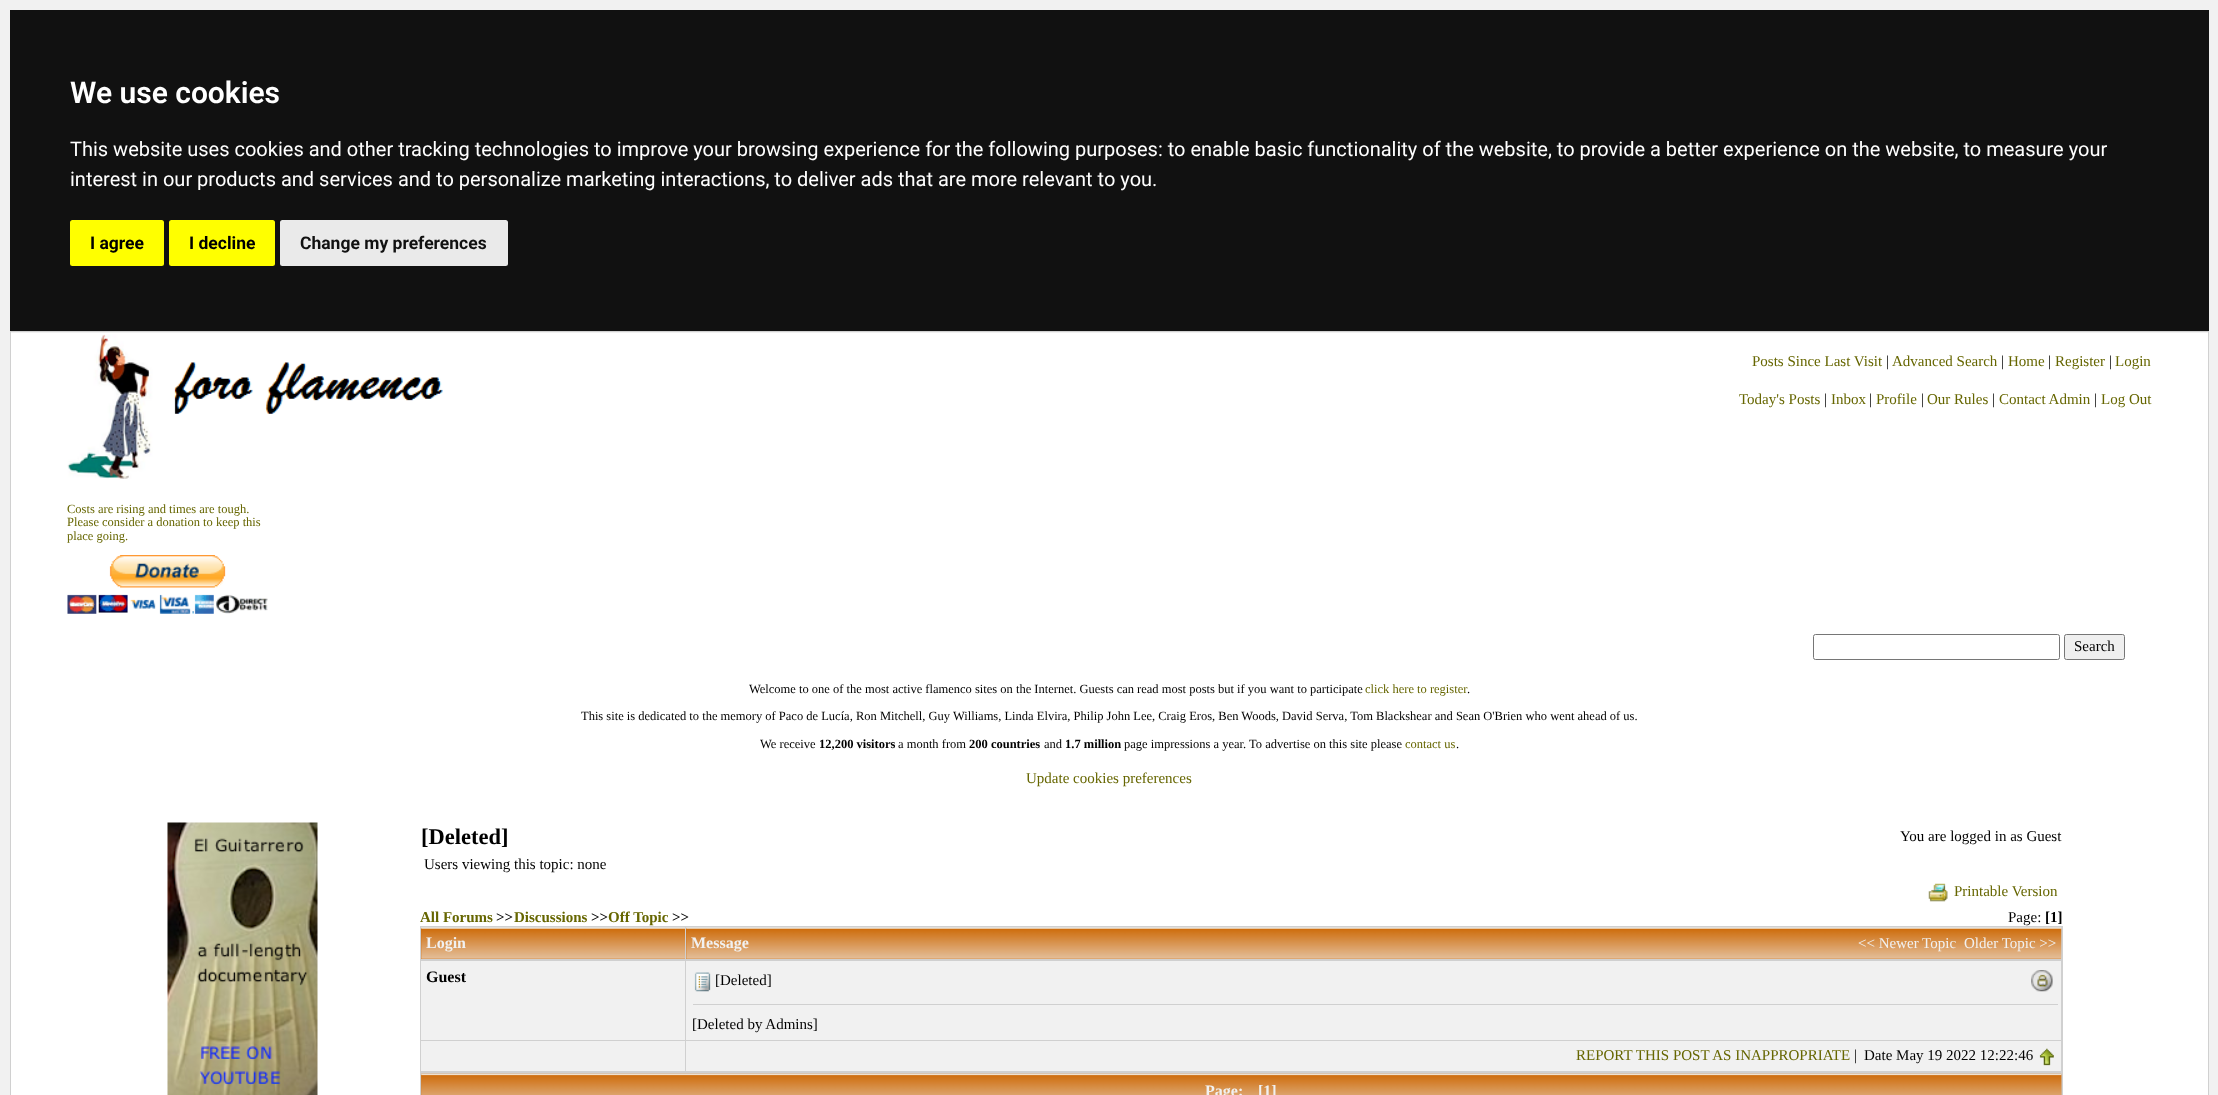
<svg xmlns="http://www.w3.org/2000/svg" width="2218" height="1095">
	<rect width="100%" height="100%" fill="#F1F1F1" />
	<rect x="10" y="10" width="2199" height="321" fill="#111111" />
	<text x="70" y="103" font-family="Roboto" font-size="30" font-weight="600" fill="#FFFFFF">We use cookies</text>
	<g font-family="Roboto" font-size="20" fill="#FFFFFF">
		<text x="70" y="156">This website uses cookies and other tracking technologies to improve your browsing experience for the following purposes: to enable basic functionality of the website, to provide a better experience on the website, to measure your</text>
		<text x="70" y="186">interest in our products and services and to personalize marketing interactions, to deliver ads that are more relevant to you.</text>
	</g>
	<rect x="70" y="220" width="94" height="46" rx="2.5" fill="#FFFF00" />
	<text x="90" y="249" font-family="Roboto" font-size="17.5" font-weight="700" fill="#000000">I agree</text>
	<rect x="169" y="220" width="106" height="46" rx="2.5" fill="#FFFF00" />
	<text x="189" y="249" font-family="Roboto" font-size="17.5" font-weight="700" fill="#000000">I decline</text>
	<rect x="280" y="220" width="228" height="46" rx="2.5" fill="#EAEAEA" />
	<text x="300" y="249" font-family="Roboto" font-size="17.5" font-weight="700" fill="#111111">Change my preferences</text>
	<rect x="10.5" y="331.5" width="2198" height="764" fill="none" stroke="#D0D0D0" />
	<rect x="11" y="333" width="2197" height="762" fill="#FFFFFF" />
	<text x="1752" y="366" font-family="Liberation Serif" font-size="15" fill="#666600">Posts Since Last Visit</text>
	<text x="1886" y="366" font-family="Liberation Serif" font-size="15" fill="#000000">|</text>
	<text x="1892" y="366" font-family="Liberation Serif" font-size="15" fill="#666600">Advanced Search</text>
	<text x="2001" y="366" font-family="Liberation Serif" font-size="15" fill="#000000">|</text>
	<text x="2008" y="366" font-family="Liberation Serif" font-size="15" fill="#666600">Home</text>
	<text x="2048" y="366" font-family="Liberation Serif" font-size="15" fill="#000000">|</text>
	<text x="2055" y="366" font-family="Liberation Serif" font-size="15" fill="#666600">Register</text>
	<text x="2109" y="366" font-family="Liberation Serif" font-size="15" fill="#000000">|</text>
	<g font-family="Liberation Serif" font-size="15" fill="#666600">
		<text x="2115" y="366">Login</text>
		<text x="1739" y="404">Today's Posts</text>
	</g>
	<text x="1824" y="404" font-family="Liberation Serif" font-size="15" fill="#000000">|</text>
	<text x="1831" y="404" font-family="Liberation Serif" font-size="15" fill="#666600">Inbox</text>
	<text x="1869" y="404" font-family="Liberation Serif" font-size="15" fill="#000000">|</text>
	<text x="1876" y="404" font-family="Liberation Serif" font-size="15" fill="#666600">Profile</text>
	<text x="1921" y="404" font-family="Liberation Serif" font-size="15" fill="#000000">|</text>
	<text x="1927" y="404" font-family="Liberation Serif" font-size="15" fill="#666600">Our Rules</text>
	<text x="1992" y="404" font-family="Liberation Serif" font-size="15" fill="#000000">|</text>
	<text x="1999" y="404" font-family="Liberation Serif" font-size="15" fill="#666600">Contact Admin</text>
	<text x="2094" y="404" font-family="Liberation Serif" font-size="15" fill="#000000">|</text>
	<text x="2101" y="404" font-family="Liberation Serif" font-size="15" fill="#666600">Log Out</text>
	<image x="67" y="334" width="376" height="145" href="assets/img1.png" />
	<g font-family="Liberation Serif" font-size="12.5" fill="#666600">
		<text x="67" y="513">Costs are rising and times are tough.</text>
		<text x="67" y="526">Please consider a donation to keep this</text>
		<text x="67" y="540">place going.</text>
	</g>
	<image x="67" y="555" width="201" height="59" href="assets/img2.png" />
	<rect x="1813.5" y="634.5" width="246" height="25" rx="2" fill="none" stroke="#767676" />
	<rect x="2064.5" y="634.5" width="60" height="25" rx="2" fill="#EFEFEF" stroke="#767676" />
	<text x="2074" y="651" font-family="Liberation Serif" font-size="15" fill="#000000">Search</text>
	<text x="749" y="693" font-family="Liberation Serif" font-size="12.5" fill="#000000">Welcome to one of the most active flamenco sites on the Internet. Guests can read most posts but if you want to participate</text>
	<text x="1365" y="693" font-family="Liberation Serif" font-size="12.5" fill="#666600">click here to register</text>
	<g font-family="Liberation Serif" font-size="12.5" fill="#000000">
		<text x="1467" y="693">.</text>
		<text x="581" y="720">This site is dedicated to the memory of Paco de Lucía, Ron Mitchell, Guy Williams, Linda Elvira, Philip John Lee, Craig Eros, Ben Woods, David Serva, Tom Blackshear and Sean O'Brien who went ahead of us.</text>
		<text x="760" y="748">We receive</text>
	</g>
	<text x="819" y="748" font-family="Liberation Serif" font-size="12.5" font-weight="700" fill="#000000">12,200 visitors</text>
	<text x="898" y="748" font-family="Liberation Serif" font-size="12.5" fill="#000000">a month from</text>
	<text x="969" y="748" font-family="Liberation Serif" font-size="12.5" font-weight="700" fill="#000000">200 countries</text>
	<text x="1044" y="748" font-family="Liberation Serif" font-size="12.5" fill="#000000">and</text>
	<text x="1065" y="748" font-family="Liberation Serif" font-size="12.5" font-weight="700" fill="#000000">1.7 million</text>
	<text x="1124" y="748" font-family="Liberation Serif" font-size="12.5" fill="#000000">page impressions a year. To advertise on this site please</text>
	<text x="1405" y="748" font-family="Liberation Serif" font-size="12.5" fill="#666600">contact us</text>
	<text x="1456" y="748" font-family="Liberation Serif" font-size="12.5" fill="#000000">.</text>
	<text x="1026" y="783" font-family="Liberation Serif" font-size="15" fill="#666600">Update cookies preferences</text>
	<image x="167" y="822" width="151" height="273" href="assets/img3.png" />
	<text x="421" y="844" font-family="Liberation Serif" font-size="22.5" font-weight="700" fill="#000000">[Deleted]</text>
	<g font-family="Liberation Serif" font-size="15" fill="#000000">
		<text x="1900" y="841">You are logged in as Guest</text>
		<text x="424" y="869">Users viewing this topic: none</text>
	</g>
	<image x="1928" y="883" width="20" height="19" href="assets/img4.png" />
	<text x="1954" y="896" font-family="Liberation Serif" font-size="15" fill="#666600">Printable Version</text>
	<text x="420" y="922" font-family="Liberation Serif" font-size="15" font-weight="700" fill="#666600">All Forums</text>
	<text x="496" y="922" font-family="Liberation Serif" font-size="15" font-weight="700" fill="#000000">&gt;&gt;</text>
	<text x="514" y="922" font-family="Liberation Serif" font-size="15" font-weight="700" fill="#666600">Discussions</text>
	<text x="591" y="922" font-family="Liberation Serif" font-size="15" font-weight="700" fill="#000000">&gt;&gt;</text>
	<text x="608" y="922" font-family="Liberation Serif" font-size="15" font-weight="700" fill="#666600">Off Topic</text>
	<text x="672" y="922" font-family="Liberation Serif" font-size="15" font-weight="700" fill="#000000">&gt;&gt;</text>
	<text x="2008" y="922" font-family="Liberation Serif" font-size="15" fill="#000000">Page:</text>
	<text x="2045" y="922" font-family="Liberation Serif" font-size="15" font-weight="700" fill="#000000">[1]</text>
	<rect x="420" y="926" width="1643" height="169" fill="#D0D0D0" />
	<rect x="421" y="928" width="264" height="31" fill="#CC6601" />
	<image x="421" y="927" width="264" height="32" href="assets/img5.png" />
	<text x="426" y="948" font-family="Liberation Serif" font-size="16" font-weight="700" fill="#F1F1F1">Login</text>
	<rect x="686" y="928" width="1375" height="31" fill="#CC6601" />
	<image x="686" y="927" width="1376" height="32" href="assets/img6.png" />
	<text x="691" y="948" font-family="Liberation Serif" font-size="16" font-weight="700" fill="#F1F1F1">Message</text>
	<g font-family="Liberation Serif" font-size="15" fill="#F1F1F1">
		<text x="1858" y="948">&lt;&lt; Newer Topic</text>
		<text x="1964" y="948">Older Topic &gt;&gt;</text>
	</g>
	<rect x="421" y="961" width="264" height="79" fill="#F1F1F1" />
	<text x="426" y="982" font-family="Liberation Serif" font-size="16" font-weight="700" fill="#000000">Guest</text>
	<rect x="686" y="961" width="1375" height="79" fill="#F1F1F1" />
	<image x="694" y="972" width="17" height="20" href="assets/img7.png" />
	<text x="715" y="985" font-family="Liberation Serif" font-size="15" fill="#000000">[Deleted]</text>
	<image x="2031" y="970" width="22" height="22" href="assets/img8.png" />
	<rect x="693" y="1004" width="1365" height="1" fill="#D0D0D0" />
	<text x="692" y="1029" font-family="Liberation Serif" font-size="15" fill="#000000">[Deleted by Admins]</text>
	<rect x="421" y="1041" width="264" height="30" fill="#F1F1F1" />
	<rect x="686" y="1041" width="1375" height="30" fill="#F1F1F1" />
	<text x="1576" y="1060" font-family="Liberation Serif" font-size="15" fill="#666600">REPORT THIS POST AS INAPPROPRIATE</text>
	<g font-family="Liberation Serif" font-size="15" fill="#000000">
		<text x="1854" y="1060">|</text>
		<text x="1864" y="1060">Date May 19 2022 12:22:46</text>
	</g>
	<image x="2039" y="1048" width="15" height="18" href="assets/img9.png" />
	<image x="421" y="1073" width="1641" height="22" href="assets/img10.png" />
	<g font-family="Liberation Serif" font-size="16" font-weight="700" fill="#F1F1F1">
		<text x="1205" y="1096">Page:</text>
		<text x="1258" y="1096">[1]</text>
	</g>
</svg>
